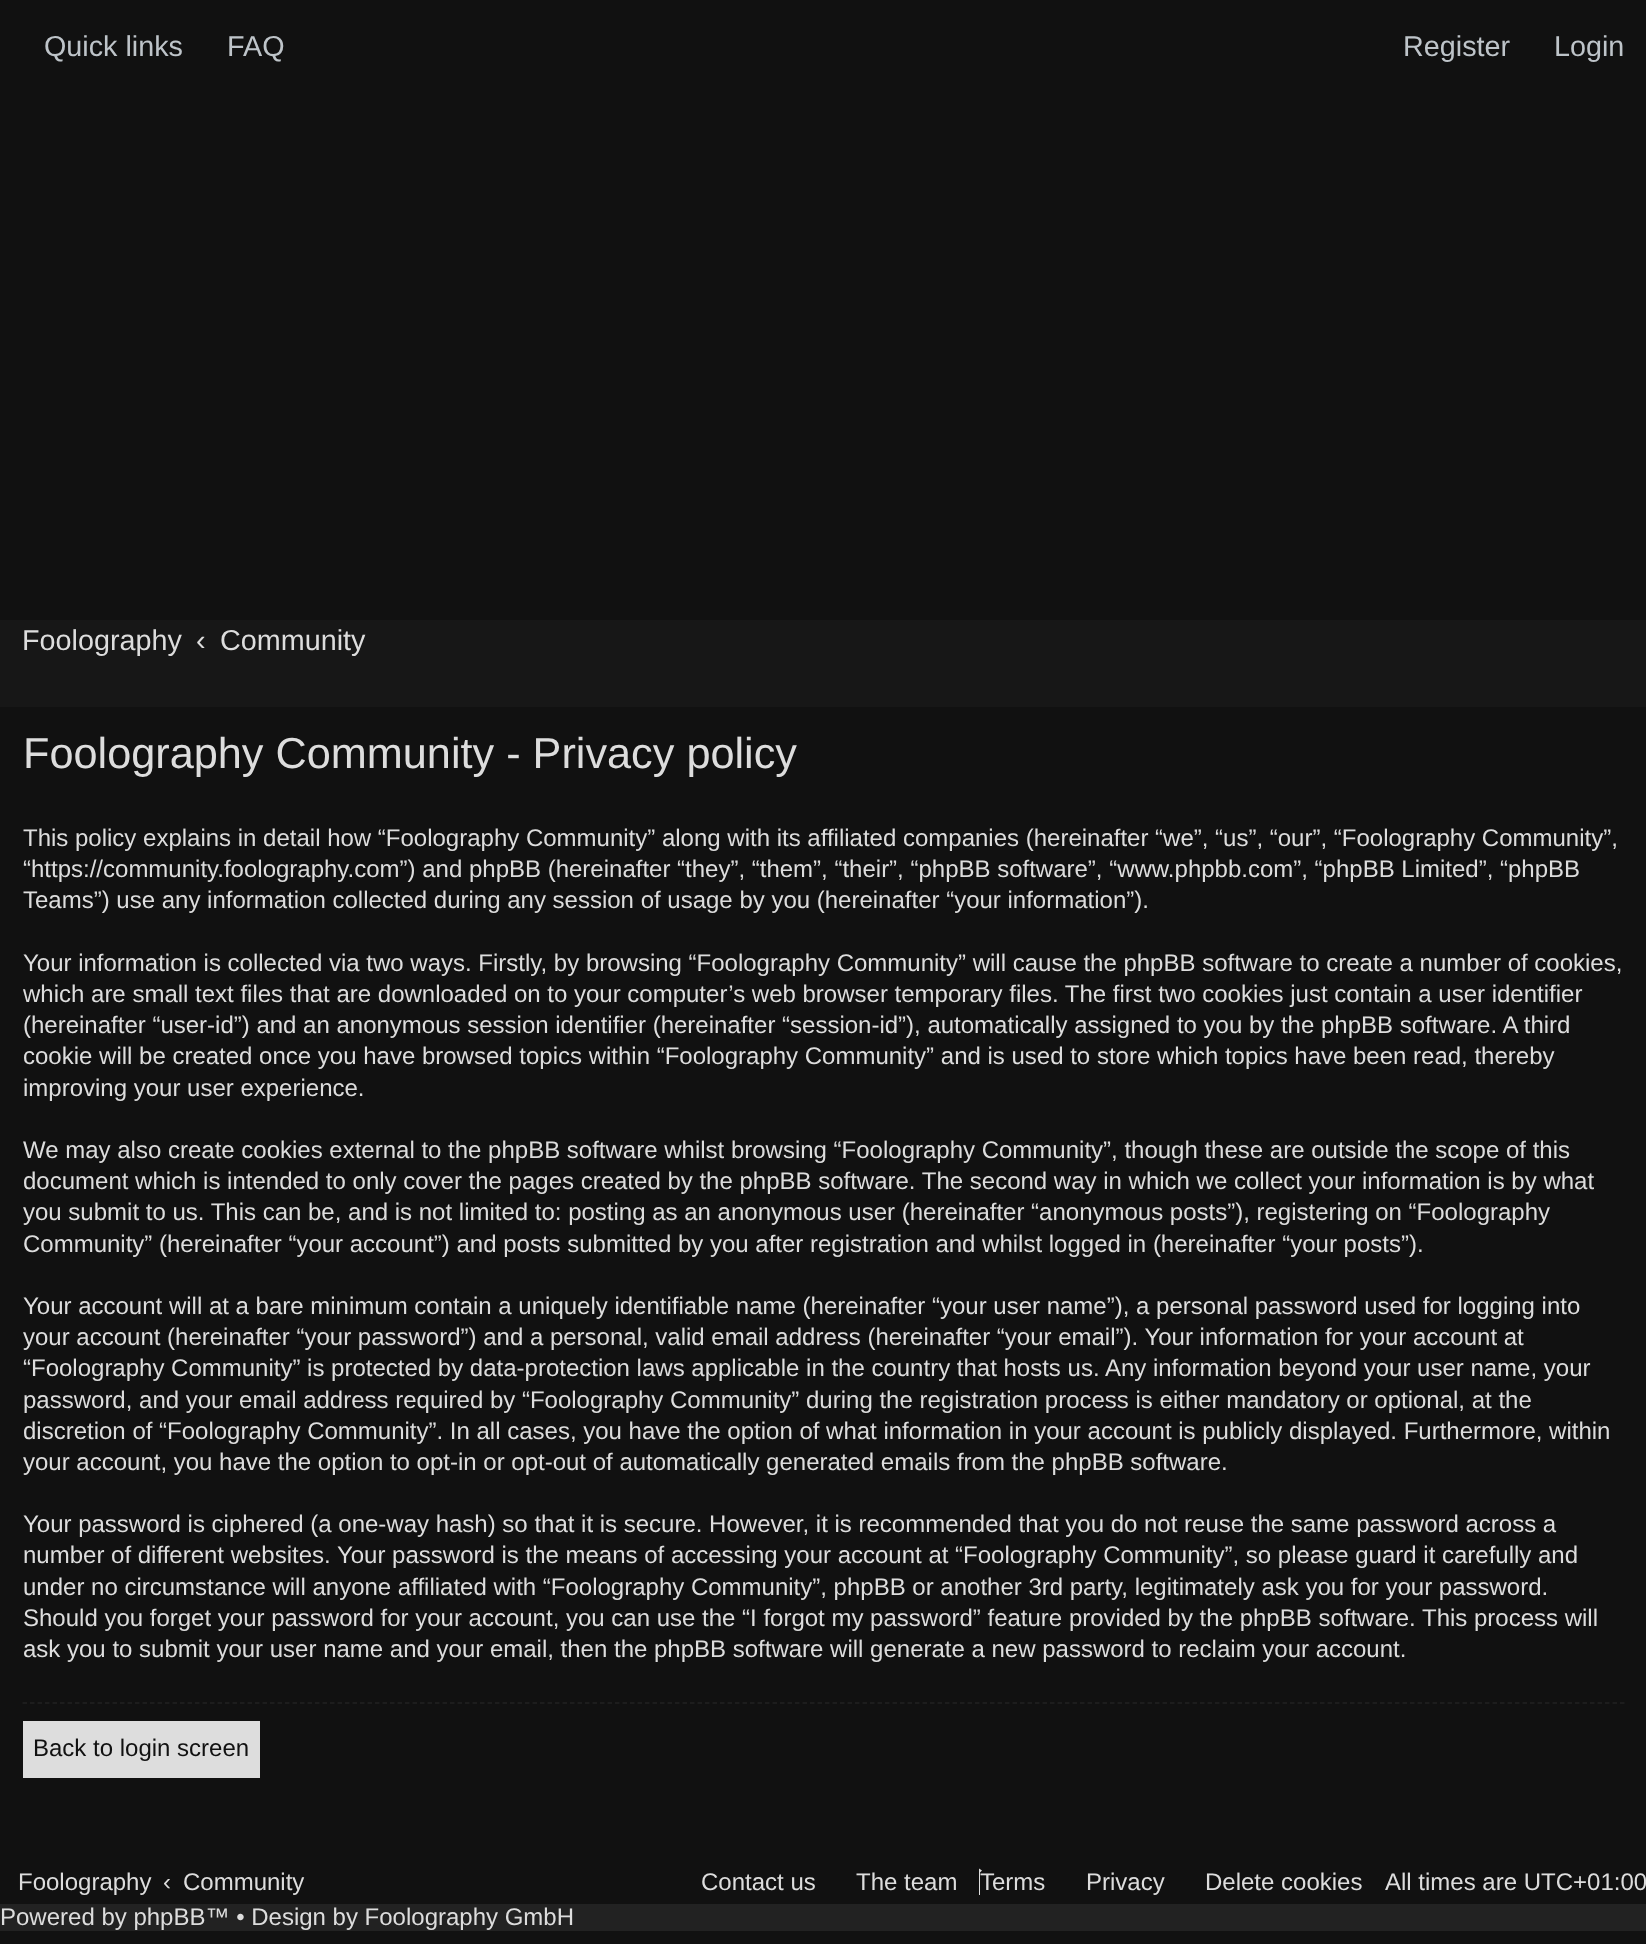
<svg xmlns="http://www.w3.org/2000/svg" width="1646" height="1944">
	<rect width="100%" height="100%" fill="#111111" />
	<g font-family="Liberation Sans" font-size="28.75" fill="#BEC4C9">
		<text x="44" y="56">Quick links</text>
		<text x="227" y="56">FAQ</text>
		<text x="1403" y="56">Register</text>
		<text x="1554" y="56">Login</text>
	</g>
	<rect x="0" y="620" width="1646" height="87" fill="#171717" />
	<g font-family="Liberation Sans" font-size="28.75" fill="#DDDDDD">
		<text x="22" y="650">Foolography</text>
		<text x="196" y="650">‹</text>
		<text x="220" y="650">Community</text>
	</g>
	<text x="23" y="768" font-family="Liberation Sans" font-size="43.25" fill="#DDDDDD">Foolography Community - Privacy policy</text>
	<g font-family="Liberation Sans" font-size="24" fill="#DDDDDD">
		<text x="23" y="846">This policy explains in detail how “Foolography Community” along with its affiliated companies (hereinafter “we”, “us”, “our”, “Foolography Community”,</text>
		<text x="23" y="877">“https://community.foolography.com”) and phpBB (hereinafter “they”, “them”, “their”, “phpBB software”, “www.phpbb.com”, “phpBB Limited”, “phpBB</text>
		<text x="23" y="908">Teams”) use any information collected during any session of usage by you (hereinafter “your information”).</text>
		<text x="23" y="971">Your information is collected via two ways. Firstly, by browsing “Foolography Community” will cause the phpBB software to create a number of cookies,</text>
		<text x="23" y="1002">which are small text files that are downloaded on to your computer’s web browser temporary files. The first two cookies just contain a user identifier</text>
		<text x="23" y="1033">(hereinafter “user-id”) and an anonymous session identifier (hereinafter “session-id”), automatically assigned to you by the phpBB software. A third</text>
		<text x="23" y="1064">cookie will be created once you have browsed topics within “Foolography Community” and is used to store which topics have been read, thereby</text>
		<text x="23" y="1096">improving your user experience.</text>
		<text x="23" y="1158">We may also create cookies external to the phpBB software whilst browsing “Foolography Community”, though these are outside the scope of this</text>
		<text x="23" y="1189">document which is intended to only cover the pages created by the phpBB software. The second way in which we collect your information is by what</text>
		<text x="23" y="1220">you submit to us. This can be, and is not limited to: posting as an anonymous user (hereinafter “anonymous posts”), registering on “Foolography</text>
		<text x="23" y="1252">Community” (hereinafter “your account”) and posts submitted by you after registration and whilst logged in (hereinafter “your posts”).</text>
		<text x="23" y="1314">Your account will at a bare minimum contain a uniquely identifiable name (hereinafter “your user name”), a personal password used for logging into</text>
		<text x="23" y="1345">your account (hereinafter “your password”) and a personal, valid email address (hereinafter “your email”). Your information for your account at</text>
		<text x="23" y="1376">“Foolography Community” is protected by data-protection laws applicable in the country that hosts us. Any information beyond your user name, your</text>
		<text x="23" y="1408">password, and your email address required by “Foolography Community” during the registration process is either mandatory or optional, at the</text>
		<text x="23" y="1439">discretion of “Foolography Community”. In all cases, you have the option of what information in your account is publicly displayed. Furthermore, within</text>
		<text x="23" y="1470">your account, you have the option to opt-in or opt-out of automatically generated emails from the phpBB software.</text>
		<text x="23" y="1532">Your password is ciphered (a one-way hash) so that it is secure. However, it is recommended that you do not reuse the same password across a</text>
		<text x="23" y="1563">number of different websites. Your password is the means of accessing your account at “Foolography Community”, so please guard it carefully and</text>
		<text x="23" y="1595">under no circumstance will anyone affiliated with “Foolography Community”, phpBB or another 3rd party, legitimately ask you for your password.</text>
		<text x="23" y="1626">Should you forget your password for your account, you can use the “I forgot my password” feature provided by the phpBB software. This process will</text>
		<text x="23" y="1657">ask you to submit your user name and your email, then the phpBB software will generate a new password to reclaim your account.</text>
	</g>
	<path d="M22.5 1703H1624.5" fill="none" stroke="#222222" stroke-width="1.5" stroke-dasharray="4.5 3" />
	<rect x="23" y="1721" width="237" height="57" fill="#DDDDDD" />
	<text x="33" y="1756" font-family="Liberation Sans" font-size="24" fill="#111111">Back to login screen</text>
	<g font-family="Liberation Sans" font-size="24" fill="#DDDDDD">
		<text x="18" y="1890">Foolography</text>
		<text x="163" y="1890">‹</text>
		<text x="183" y="1890">Community</text>
		<text x="701" y="1890">Contact us</text>
		<text x="856" y="1890">The team</text>
	</g>
	<path d="M982 1870.5L980 1872.5V1895H979V1868.5Z" fill="#DDDDDD" />
	<g font-family="Liberation Sans" font-size="24" fill="#DDDDDD">
		<text x="980" y="1890">Terms</text>
		<text x="1086" y="1890">Privacy</text>
		<text x="1205" y="1890">Delete cookies</text>
		<text x="1385" y="1890">All times are UTC+01:00</text>
	</g>
	<rect x="0" y="1904" width="1646" height="27" fill="#222222" />
	<text x="0" y="1925" font-family="Liberation Sans" font-size="24" fill="#DDDDDD">Powered by phpBB™ • Design by Foolography GmbH</text>
</svg>
